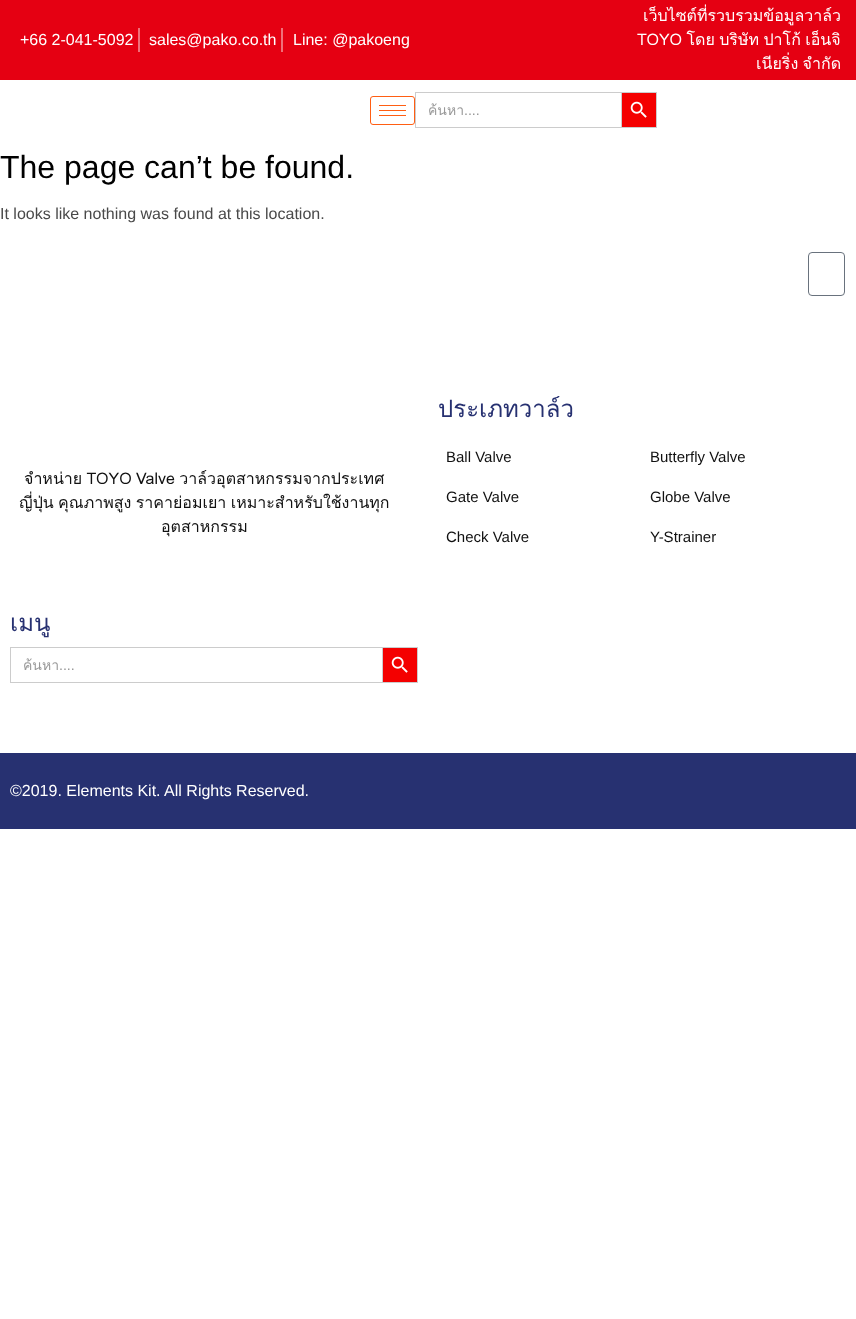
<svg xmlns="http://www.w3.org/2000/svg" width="856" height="1319">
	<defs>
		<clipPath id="clip1"><rect x="428" y="99" width="181" height="22" /></clipPath>
		<clipPath id="clip2"><rect x="23" y="654" width="347" height="22" /></clipPath>
	</defs>
	<rect width="100%" height="100%" fill="#FFFFFF" />
	<rect x="0" y="0" width="856" height="80" fill="#E50012" />
	<text x="20" y="45" font-family="Liberation Sans" font-size="16" fill="#FFFFFF">+66 2-041-5092</text>
	<rect x="138" y="28" width="2" height="24" fill="#F0707A" />
	<text x="149" y="45" font-family="Liberation Sans" font-size="16" fill="#FFFFFF">sales@pako.co.th</text>
	<rect x="281" y="28" width="2" height="24" fill="#F0707A" />
	<text x="293" y="45" font-family="Liberation Sans" font-size="16" fill="#FFFFFF">Line: @pakoeng</text>
	<g font-family="Loma" font-size="16" fill="#FFFFFF">
		<text x="643" y="21">เว็บไซต์ที่รวบรวมข้อมูลวาล์ว</text>
		<text x="637" y="45" word-spacing="-1">TOYO โดย บริษัท ปาโก้ เอ็นจิ</text>
		<text x="756" y="69" word-spacing="-1">เนียริ่ง จำกัด</text>
	</g>
	<rect x="370.5" y="96.5" width="44" height="28" rx="2.5" fill="none" stroke="#FF5E13" />
	<rect x="379" y="105" width="27" height="1" fill="#FF5E13" />
	<rect x="379" y="110" width="27" height="1" fill="#FF5E13" />
	<rect x="379" y="115" width="27" height="1" fill="#FF5E13" />
	<rect x="415" y="92" width="206" height="1" fill="#CCCCCC" />
	<rect x="415" y="127" width="206" height="1" fill="#CCCCCC" />
	<rect x="415" y="92" width="1" height="36" fill="#CCCCCC" />
	<g clip-path="url(#clip1)">
		<text x="428" y="115" font-family="Loma" font-size="14" fill="#999999">ค้นหา....</text>
	</g>
	<rect x="621.5" y="92.5" width="35" height="35" fill="#F40000" stroke="#CCCCCC" />
	<image x="630" y="101" width="17" height="17" href="assets/img1.png" />
	<text x="0" y="178" font-family="Liberation Sans" font-size="32" fill="#000000">The page can’t be found.</text>
	<text x="0" y="219" font-family="Liberation Sans" font-size="16" fill="#494949">It looks like nothing was found at this location.</text>
	<rect x="808.5" y="252.5" width="36" height="43" rx="3.5" fill="none" stroke="#69727D" />
	<g font-family="Loma" font-size="16" fill="#111111">
		<text x="24" y="484" word-spacing="-1">จำหน่าย TOYO Valve วาล์วอุตสาหกรรมจากประเทศ</text>
		<text x="19" y="508" word-spacing="-1">ญี่ปุ่น คุณภาพสูง ราคาย่อมเยา เหมาะสำหรับใช้งานทุก</text>
		<text x="161" y="532">อุตสาหกรรม</text>
	</g>
	<text x="438" y="417" font-family="Loma" font-size="24" fill="#273171">ประเภทวาล์ว</text>
	<g font-family="Liberation Sans" font-size="15" fill="#111111">
		<text x="446" y="462">Ball Valve</text>
		<text x="446" y="502">Gate Valve</text>
		<text x="446" y="542">Check Valve</text>
		<text x="650" y="462">Butterfly Valve</text>
		<text x="650" y="502">Globe Valve</text>
		<text x="650" y="542">Y-Strainer</text>
	</g>
	<text x="10" y="631" font-family="Loma" font-size="24" fill="#273171">เมนู</text>
	<rect x="10" y="647" width="372" height="1" fill="#CCCCCC" />
	<rect x="10" y="682" width="372" height="1" fill="#CCCCCC" />
	<rect x="10" y="647" width="1" height="36" fill="#CCCCCC" />
	<g clip-path="url(#clip2)">
		<text x="23" y="670" font-family="Loma" font-size="14" fill="#999999">ค้นหา....</text>
	</g>
	<rect x="382.5" y="647.5" width="35" height="35" fill="#F40000" stroke="#CCCCCC" />
	<image x="391" y="656" width="17" height="17" href="assets/img1.png" />
	<rect x="0" y="753" width="856" height="76" fill="#273171" />
	<text x="10" y="796" font-family="Liberation Sans" font-size="16" fill="#FFFFFF">©2019. Elements Kit. All Rights Reserved.</text>
</svg>
